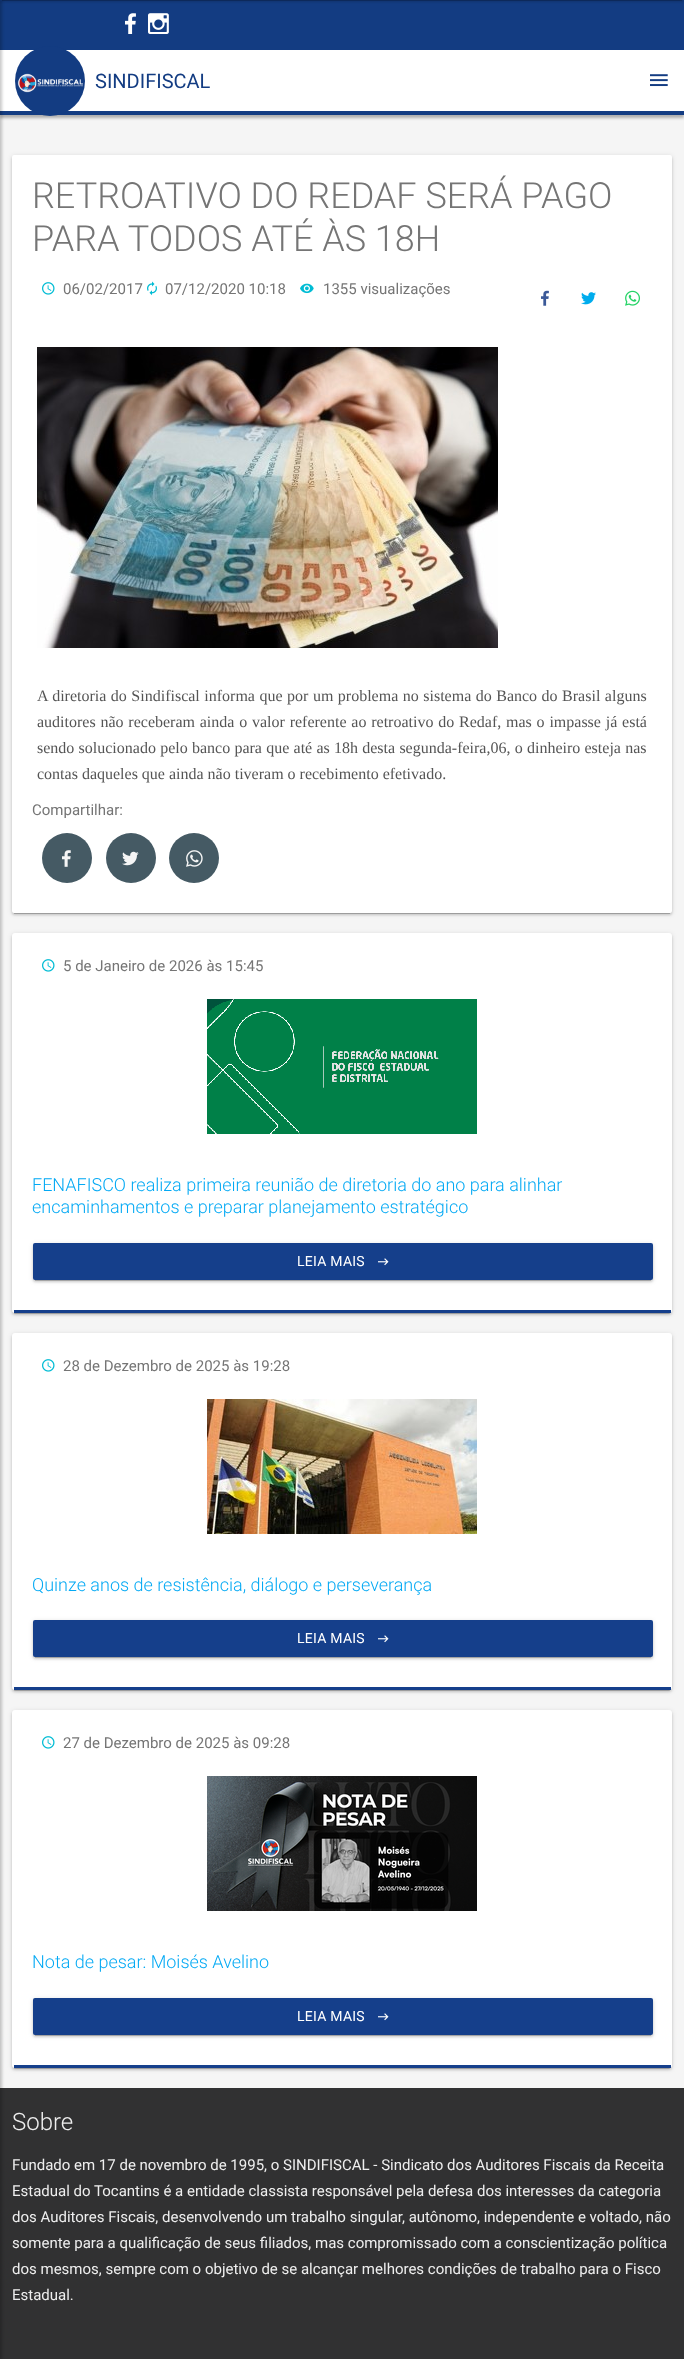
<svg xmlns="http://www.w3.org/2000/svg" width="684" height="2359">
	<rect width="100%" height="100%" fill="#F5F5F5" />
	<rect x="0" y="0" width="684" height="50" fill="#133C82" />
	<image x="125" y="13" width="11" height="21" href="assets/img1.png" />
	<image x="148" y="13" width="21" height="21" href="assets/img2.png" />
	<rect x="0" y="53" width="684" height="65" fill="#000000" fill-opacity="0.29" filter="blur(1.5px)" />
	<rect x="0" y="50" width="684" height="61" fill="#FFFFFF" />
	<rect x="0" y="111" width="684" height="4" fill="#133C82" />
	<rect x="0" y="2088" width="684" height="271" fill="#313132" />
	<rect x="-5" y="0" width="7" height="2359" fill="#000000" fill-opacity="0.21" filter="blur(1.5px)" />
	<circle cx="50" cy="81" r="35" fill="#133C82" />
	<image x="17" y="73" width="66" height="20" href="assets/img3.png" />
	<text x="95" y="88" font-family="Roboto" font-size="20" fill="#133C82">SINDIFISCAL</text>
	<image x="650" y="74" width="18" height="13" href="assets/img4.png" />
	<rect x="12" y="156" width="660" height="758" rx="2" fill="#000000" fill-opacity="0.12" filter="blur(2.5px)" />
	<rect x="14" y="160" width="656" height="754" fill="#000000" fill-opacity="0.2" filter="blur(0.5px)" />
	<rect x="12" y="157" width="660" height="758" rx="2" fill="#000000" fill-opacity="0.14" filter="blur(1px)" />
	<rect x="12" y="155" width="660" height="758" rx="2" fill="#FFFFFF" />
	<g font-family="Roboto" font-size="36" font-weight="300" fill="#757575">
		<text x="32" y="208">RETROATIVO DO REDAF SERÁ PAGO</text>
		<text x="32" y="251">PARA TODOS ATÉ ÀS 18H</text>
	</g>
	<image x="42" y="282" width="13" height="13" href="assets/img5.png" />
	<text x="63" y="294" font-family="Roboto" font-size="15" fill="#757575">06/02/2017</text>
	<image x="147" y="281" width="10" height="15" href="assets/img6.png" />
	<text x="165" y="294" font-family="Roboto" font-size="15" fill="#757575">07/12/2020 10:18</text>
	<image x="300" y="283" width="14" height="11" href="assets/img7.png" />
	<text x="323" y="294" font-family="Roboto" font-size="15" fill="#757575">1355 visualizações</text>
	<image x="541" y="290" width="8" height="16" href="assets/img8.png" />
	<image x="581" y="292" width="15" height="13" href="assets/img9.png" />
	<image x="625" y="290" width="15" height="16" href="assets/img10.png" />
	<image x="37" y="347" width="461" height="301" href="assets/img11.png" />
	<g font-family="Liberation Serif" font-size="16" fill="#555555">
		<text x="37" y="701" word-spacing="0.5">A diretoria do Sindifiscal informa que por um problema no sistema do Banco do Brasil alguns</text>
		<text x="37" y="727" word-spacing="0.8">auditores não receberam ainda o valor referente ao retroativo do Redaf, mas o impasse já está</text>
		<text x="37" y="753" word-spacing="0.25">sendo solucionado pelo banco para que até as 18h desta segunda-feira,06, o dinheiro esteja nas</text>
		<text x="37" y="779">contas daqueles que ainda não tiveram o recebimento efetivado.</text>
	</g>
	<text x="32" y="815" font-family="Roboto" font-size="15" fill="#757575">Compartilhar:</text>
	<circle cx="67" cy="858" r="25" fill="#455A64" />
	<image x="62" y="850" width="9" height="17" href="assets/img12.png" />
	<circle cx="131" cy="858" r="25" fill="#455A64" />
	<image x="122" y="851" width="17" height="15" href="assets/img13.png" />
	<circle cx="194" cy="858" r="25" fill="#455A64" />
	<image x="186" y="850" width="17" height="17" href="assets/img14.png" />
	<rect x="12" y="934" width="660" height="380" rx="3" fill="#000000" fill-opacity="0.12" filter="blur(2.5px)" />
	<rect x="14" y="938" width="656" height="376" rx="1" fill="#000000" fill-opacity="0.2" filter="blur(0.5px)" />
	<rect x="12" y="935" width="660" height="380" rx="3" fill="#000000" fill-opacity="0.14" filter="blur(1px)" />
	<rect x="12" y="933" width="660" height="380" rx="3" fill="#FFFFFF" />
	<rect x="14" y="1310" width="657" height="3" fill="#153F8B" />
	<image x="42" y="959" width="13" height="13" href="assets/img5.png" />
	<text x="63" y="971" font-family="Roboto" font-size="15" fill="#757575">5 de Janeiro de 2026 às 15:45</text>
	<image x="207" y="999" width="270" height="135" href="assets/img15.png" />
	<g font-family="Roboto" font-size="18" font-weight="300" fill="#03A9F4">
		<text x="32" y="1191">FENAFISCO realiza primeira reunião de diretoria do ano para alinhar</text>
		<text x="32" y="1213">encaminhamentos e preparar planejamento estratégico</text>
	</g>
	<rect x="33" y="1244" width="620" height="37" rx="2" fill="#000000" fill-opacity="0.12" filter="blur(2.5px)" />
	<rect x="35" y="1248" width="616" height="33" fill="#000000" fill-opacity="0.2" filter="blur(0.5px)" />
	<rect x="33" y="1245" width="620" height="37" rx="2" fill="#000000" fill-opacity="0.14" filter="blur(1px)" />
	<rect x="33" y="1243" width="620" height="37" rx="2" fill="#153F8B" />
	<text x="297" y="1266" font-family="Roboto" font-size="14" letter-spacing="0.25" fill="#FFFFFF">LEIA MAIS</text>
	<image x="378" y="1258" width="11" height="8" href="assets/img16.png" />
	<rect x="12" y="1334" width="660" height="357" rx="3" fill="#000000" fill-opacity="0.12" filter="blur(2.5px)" />
	<rect x="14" y="1338" width="656" height="353" rx="1" fill="#000000" fill-opacity="0.2" filter="blur(0.5px)" />
	<rect x="12" y="1335" width="660" height="357" rx="3" fill="#000000" fill-opacity="0.14" filter="blur(1px)" />
	<rect x="12" y="1333" width="660" height="357" rx="3" fill="#FFFFFF" />
	<rect x="14" y="1687" width="657" height="3" fill="#153F8B" />
	<image x="42" y="1359" width="13" height="13" href="assets/img5.png" />
	<text x="63" y="1371" font-family="Roboto" font-size="15" fill="#757575">28 de Dezembro de 2025 às 19:28</text>
	<image x="207" y="1399" width="270" height="135" href="assets/img17.png" />
	<text x="32" y="1591" font-family="Roboto" font-size="18" font-weight="300" fill="#03A9F4">Quinze anos de resistência, diálogo e perseverança</text>
	<rect x="33" y="1621" width="620" height="37" rx="2" fill="#000000" fill-opacity="0.12" filter="blur(2.5px)" />
	<rect x="35" y="1625" width="616" height="33" fill="#000000" fill-opacity="0.2" filter="blur(0.5px)" />
	<rect x="33" y="1622" width="620" height="37" rx="2" fill="#000000" fill-opacity="0.14" filter="blur(1px)" />
	<rect x="33" y="1620" width="620" height="37" rx="2" fill="#153F8B" />
	<text x="297" y="1643" font-family="Roboto" font-size="14" letter-spacing="0.25" fill="#FFFFFF">LEIA MAIS</text>
	<image x="378" y="1635" width="11" height="8" href="assets/img16.png" />
	<rect x="12" y="1711" width="660" height="358" rx="3" fill="#000000" fill-opacity="0.12" filter="blur(2.5px)" />
	<rect x="14" y="1715" width="656" height="354" rx="1" fill="#000000" fill-opacity="0.2" filter="blur(0.5px)" />
	<rect x="12" y="1712" width="660" height="358" rx="3" fill="#000000" fill-opacity="0.14" filter="blur(1px)" />
	<rect x="12" y="1710" width="660" height="358" rx="3" fill="#FFFFFF" />
	<rect x="14" y="2065" width="657" height="3" fill="#153F8B" />
	<image x="42" y="1736" width="13" height="13" href="assets/img5.png" />
	<text x="63" y="1748" font-family="Roboto" font-size="15" fill="#757575">27 de Dezembro de 2025 às 09:28</text>
	<image x="207" y="1776" width="270" height="135" href="assets/img18.png" />
	<text x="32" y="1968" font-family="Roboto" font-size="18" font-weight="300" fill="#03A9F4">Nota de pesar: Moisés Avelino</text>
	<rect x="33" y="1999" width="620" height="37" rx="2" fill="#000000" fill-opacity="0.12" filter="blur(2.5px)" />
	<rect x="35" y="2003" width="616" height="33" fill="#000000" fill-opacity="0.2" filter="blur(0.5px)" />
	<rect x="33" y="2000" width="620" height="37" rx="2" fill="#000000" fill-opacity="0.14" filter="blur(1px)" />
	<rect x="33" y="1998" width="620" height="37" rx="2" fill="#153F8B" />
	<text x="297" y="2021" font-family="Roboto" font-size="14" letter-spacing="0.25" fill="#FFFFFF">LEIA MAIS</text>
	<image x="378" y="2013" width="11" height="8" href="assets/img16.png" />
	<rect x="2" y="-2" width="680" height="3" fill="#000000" fill-opacity="0.2" filter="blur(0.5px)" />
	<rect x="0" y="-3" width="684" height="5" fill="#000000" fill-opacity="0.14" filter="blur(1px)" />
	<text x="12" y="2130" font-family="Roboto" font-size="24" font-weight="300" fill="#EEEEEE">Sobre</text>
	<g font-family="Roboto" font-size="15" fill="#EEEEEE">
		<text x="12" y="2170">Fundado em 17 de novembro de 1995, o SINDIFISCAL - Sindicato dos Auditores Fiscais da Receita</text>
		<text x="12" y="2196">Estadual do Tocantins é a entidade classista responsável pela defesa dos interesses da categoria</text>
		<text x="12" y="2222">dos Auditores Fiscais, desenvolvendo um trabalho singular, autônomo, independente e voltado, não</text>
		<text x="12" y="2248">somente para a qualificação de seus filiados, mas compromissado com a conscientização política</text>
		<text x="12" y="2274">dos mesmos, sempre com o objetivo de se alcançar melhores condições de trabalho para o Fisco</text>
		<text x="12" y="2300">Estadual.</text>
	</g>
</svg>
